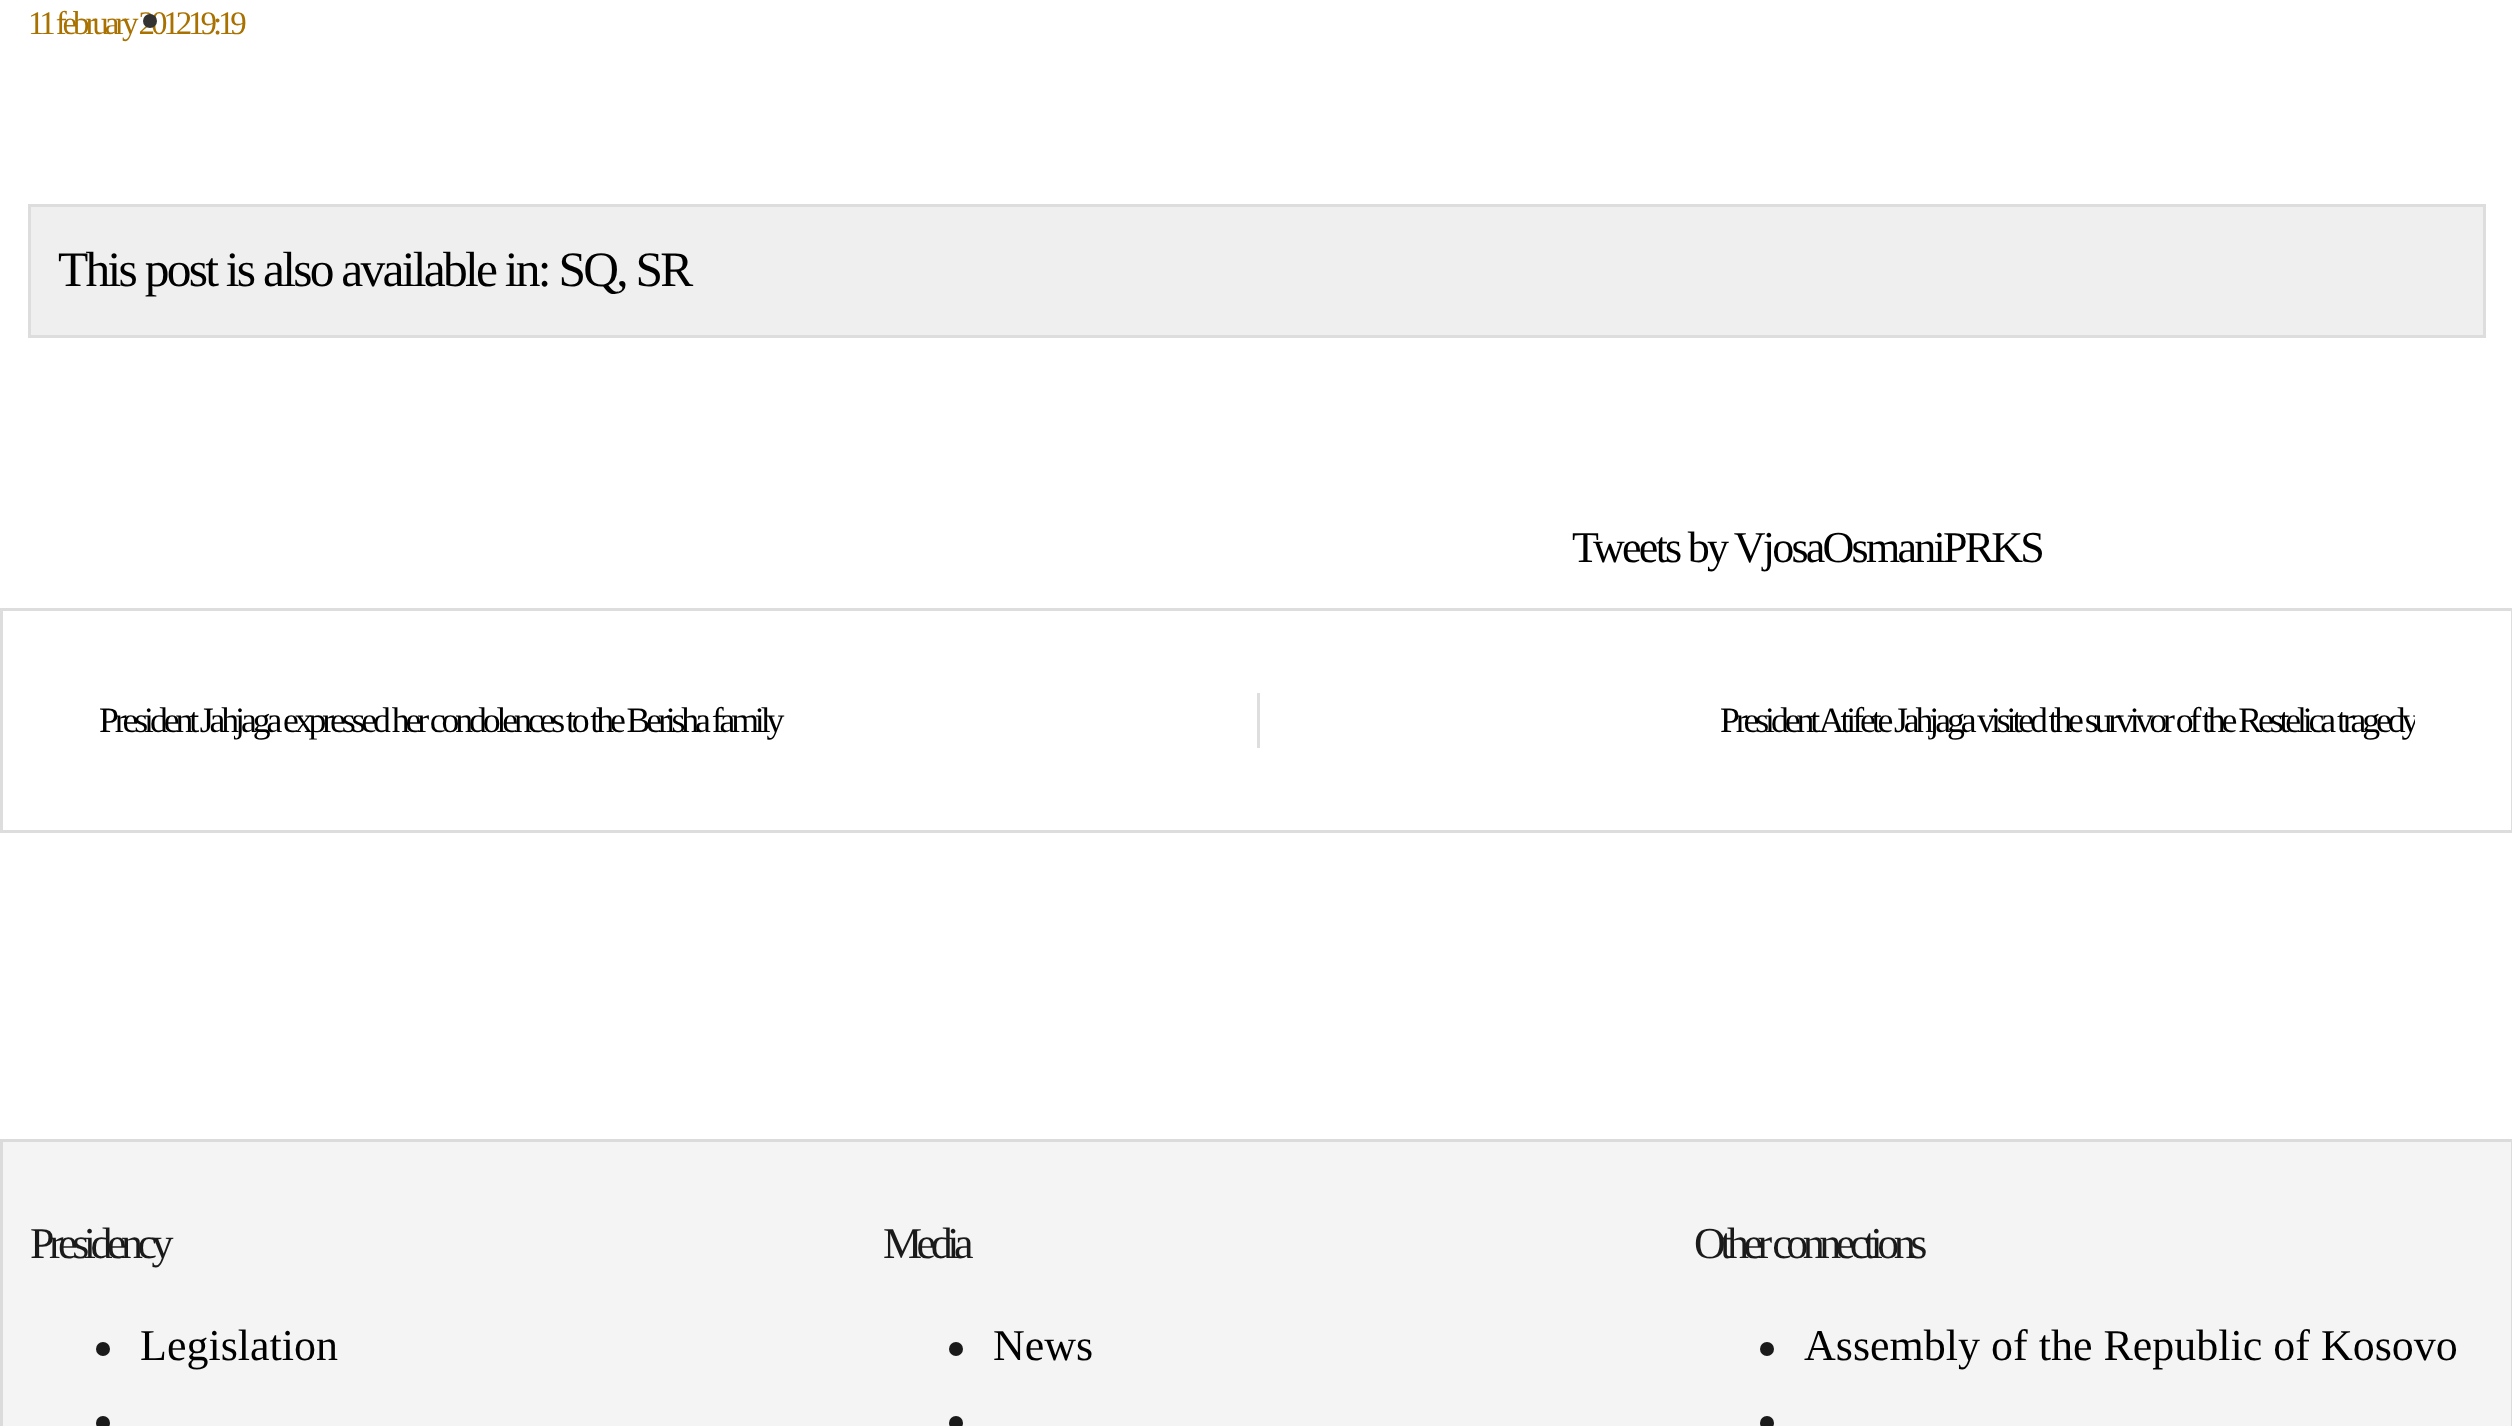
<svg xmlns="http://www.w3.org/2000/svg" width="2512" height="1426">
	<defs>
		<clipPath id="clip1"><rect x="1664" y="693" width="751" height="55" /></clipPath>
	</defs>
	<rect width="100%" height="100%" fill="#FFFFFF" />
	<text x="28" y="34" font-family="Liberation Serif" font-size="33" letter-spacing="-4.12" fill="#A87100">11 february 201219:19</text>
	<circle cx="150" cy="21" r="7" fill="#333333" />
	<rect x="29.5" y="205.5" width="2455" height="131" fill="#EFEFEF" stroke="#DDDDDD" stroke-width="3" />
	<text x="58" y="286" font-family="Liberation Serif" font-size="49.5" letter-spacing="-2.75" fill="#000000">This post is also available in: SQ, SR</text>
	<text x="1572" y="562" font-family="Liberation Serif" font-size="44" letter-spacing="-2.75" fill="#000000">Tweets by VjosaOsmaniPRKS</text>
	<rect x="1.5" y="609.5" width="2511" height="222" fill="none" stroke="#DDDDDD" stroke-width="3" />
	<text x="99" y="732" font-family="Liberation Serif" font-size="35.75" letter-spacing="-4.12" fill="#000000">President Jahjaga expressed her condolences to the Berisha family</text>
	<rect x="1257" y="693" width="3" height="55" fill="#DEDEDE" />
	<g clip-path="url(#clip1)">
		<text x="1720" y="732" font-family="Liberation Serif" font-size="35.75" letter-spacing="-4.12" fill="#000000">President Atifete Jahjaga visited the survivor of the Restelica tragedy</text>
	</g>
	<rect x="1.5" y="1140.5" width="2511" height="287" fill="#F4F4F4" stroke="#DBDBDB" stroke-width="3" />
	<text x="30" y="1258" font-family="Liberation Serif" font-size="44" letter-spacing="-5.5" fill="#1A1A1A">Presidency</text>
	<circle cx="103" cy="1349" r="7" fill="#1A1A1A" />
	<text x="140" y="1360" font-family="Liberation Serif" font-size="44" fill="#000000">Legislation</text>
	<circle cx="103" cy="1423" r="7" fill="#1A1A1A" />
	<text x="883" y="1258" font-family="Liberation Serif" font-size="44" letter-spacing="-5.5" fill="#1A1A1A">Media</text>
	<circle cx="956" cy="1349" r="7" fill="#1A1A1A" />
	<text x="993" y="1360" font-family="Liberation Serif" font-size="44" fill="#000000">News</text>
	<circle cx="956" cy="1423" r="7" fill="#1A1A1A" />
	<text x="1694" y="1258" font-family="Liberation Serif" font-size="44" letter-spacing="-5.5" fill="#1A1A1A">Other connections</text>
	<circle cx="1767" cy="1349" r="7" fill="#1A1A1A" />
	<text x="1804" y="1360" font-family="Liberation Serif" font-size="44" fill="#000000">Assembly of the Republic of Kosovo</text>
	<circle cx="1767" cy="1423" r="7" fill="#1A1A1A" />
</svg>
